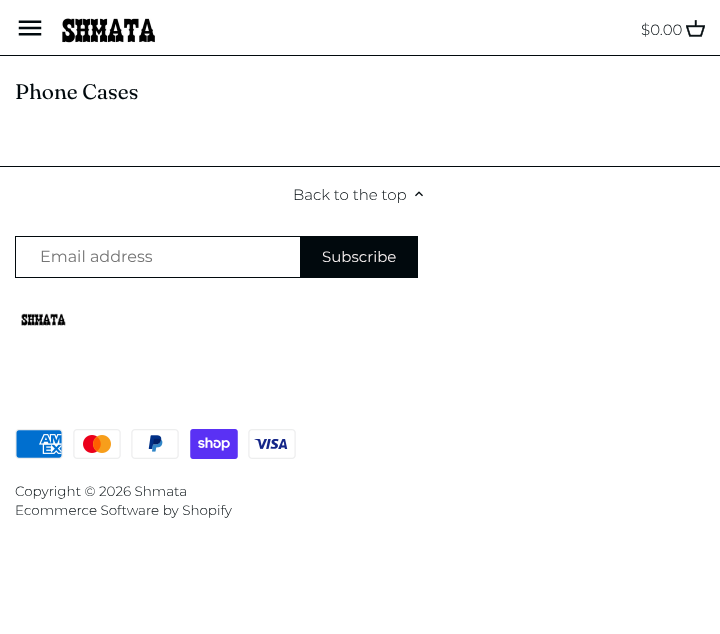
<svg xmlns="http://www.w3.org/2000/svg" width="720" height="634">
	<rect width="100%" height="100%" fill="#FFFFFF" />
	<rect x="0" y="55" width="720" height="1" fill="#01090D" />
	<image x="18" y="20" width="24" height="16" href="assets/img1.png" />
	<image x="61" y="18" width="94" height="25" href="assets/img2.png" />
	<text x="641" y="35" font-family="Montserrat" font-size="15" font-weight="300" fill="#01090D">$0.00</text>
	<image x="686" y="20" width="19" height="17" href="assets/img3.png" />
	<text x="15" y="99" font-family="Fraunces" font-size="21" fill="#01090D">Phone Cases</text>
	<rect x="0" y="166" width="720" height="1" fill="#01090D" />
	<text x="293" y="200" font-family="Montserrat" font-size="15" font-weight="300" fill="#01090D">Back to the top</text>
	<image x="415" y="191" width="8" height="6" href="assets/img4.png" />
	<rect x="15.5" y="236.5" width="401" height="41" fill="none" stroke="#01090D" />
	<text x="40" y="262" font-family="Montserrat" font-size="16" fill="#757575">Email address</text>
	<rect x="300" y="236" width="118" height="42" fill="#01090D" />
	<text x="322" y="262" font-family="Montserrat" font-size="15" fill="#FAF4F4">Subscribe</text>
	<image x="21" y="313" width="45" height="13" href="assets/img5.png" />
	<image x="15" y="429" width="48" height="30" href="assets/img6.png" />
	<image x="73" y="429" width="48" height="30" href="assets/img7.png" />
	<image x="131" y="429" width="48" height="30" href="assets/img8.png" />
	<image x="190" y="429" width="48" height="30" href="assets/img9.png" />
	<image x="248" y="429" width="48" height="30" href="assets/img10.png" />
	<g font-family="Montserrat" font-size="13.5" font-weight="300" fill="#01090D">
		<text x="15" y="496">Copyright © 2026 Shmata</text>
		<text x="15" y="515">Ecommerce Software by Shopify</text>
	</g>
</svg>
